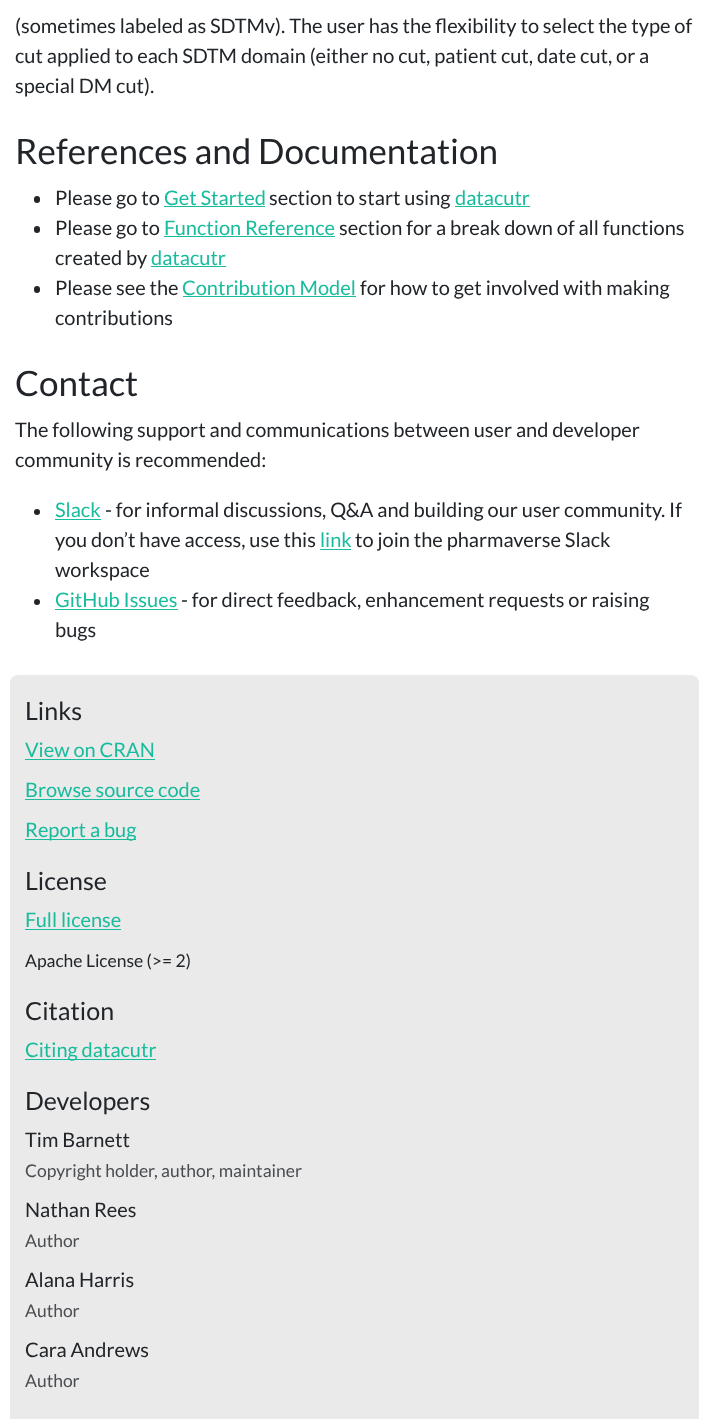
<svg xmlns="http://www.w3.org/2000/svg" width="708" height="1419">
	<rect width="100%" height="100%" fill="#FFFFFF" />
	<g font-family="Lato" font-size="20" fill="#212529">
		<text x="15" y="33">(sometimes labeled as SDTMv). The user has the flexibility to select the type of</text>
		<text x="15" y="63">cut applied to each SDTM domain (either no cut, patient cut, date cut, or a</text>
		<text x="15" y="93">special DM cut).</text>
	</g>
	<text x="15" y="164" font-family="Lato" font-size="35" fill="#212529">References and Documentation</text>
	<rect x="34" y="196" width="6" height="7" rx="3" fill="#212529" />
	<text x="55" y="205" font-family="Lato" font-size="20" fill="#212529">Please go to</text>
	<text x="164" y="205" font-family="Lato" font-size="20" fill="#18BC9C">Get Started</text>
	<rect x="164" y="206" width="101" height="1" fill="#18BC9C" />
	<text x="269" y="205" font-family="Lato" font-size="20" fill="#212529">section to start using</text>
	<text x="455" y="205" font-family="Lato" font-size="20" fill="#18BC9C">datacutr</text>
	<rect x="455" y="206" width="75" height="1" fill="#18BC9C" />
	<rect x="34" y="226" width="6" height="7" rx="3" fill="#212529" />
	<text x="55" y="235" font-family="Lato" font-size="20" fill="#212529">Please go to</text>
	<text x="164" y="235" font-family="Lato" font-size="20" fill="#18BC9C">Function Reference</text>
	<rect x="164" y="236" width="171" height="1" fill="#18BC9C" />
	<g font-family="Lato" font-size="20" fill="#212529">
		<text x="339" y="235">section for a break down of all functions</text>
		<text x="55" y="265">created by</text>
	</g>
	<text x="151" y="265" font-family="Lato" font-size="20" fill="#18BC9C">datacutr</text>
	<rect x="151" y="266" width="75" height="1" fill="#18BC9C" />
	<rect x="34" y="286" width="6" height="7" rx="3" fill="#212529" />
	<text x="55" y="295" font-family="Lato" font-size="20" fill="#212529">Please see the</text>
	<text x="182" y="295" font-family="Lato" font-size="20" fill="#18BC9C">Contribution Model</text>
	<rect x="183" y="296" width="173" height="1" fill="#18BC9C" />
	<g font-family="Lato" font-size="20" fill="#212529">
		<text x="360" y="295">for how to get involved with making</text>
		<text x="55" y="325">contributions</text>
	</g>
	<text x="15" y="396" font-family="Lato" font-size="35" fill="#212529">Contact</text>
	<g font-family="Lato" font-size="20" fill="#212529">
		<text x="15" y="437">The following support and communications between user and developer</text>
		<text x="15" y="467">community is recommended:</text>
	</g>
	<circle cx="37" cy="512" r="3" fill="#212529" />
	<text x="55" y="517" font-family="Lato" font-size="20" fill="#18BC9C">Slack</text>
	<rect x="55" y="519" width="46" height="1" fill="#18BC9C" />
	<g font-family="Lato" font-size="20" fill="#212529">
		<text x="105" y="517">- for informal discussions, Q&amp;A and building our user community. If</text>
		<text x="55" y="547">you don’t have access, use this</text>
	</g>
	<text x="320" y="547" font-family="Lato" font-size="20" fill="#18BC9C">link</text>
	<rect x="320" y="549" width="31" height="1" fill="#18BC9C" />
	<g font-family="Lato" font-size="20" fill="#212529">
		<text x="355" y="547">to join the pharmaverse Slack</text>
		<text x="55" y="577">workspace</text>
	</g>
	<circle cx="37" cy="602" r="3" fill="#212529" />
	<text x="55" y="607" font-family="Lato" font-size="20" fill="#18BC9C">GitHub Issues</text>
	<rect x="55" y="609" width="123" height="1" fill="#18BC9C" />
	<g font-family="Lato" font-size="20" fill="#212529">
		<text x="181" y="607">- for direct feedback, enhancement requests or raising</text>
		<text x="55" y="637">bugs</text>
	</g>
	<rect x="10" y="675" width="689" height="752" rx="8" fill="#EAEAEA" />
	<text x="25" y="720" font-family="Lato" font-size="25" fill="#212529">Links</text>
	<text x="25" y="757" font-family="Lato" font-size="20" fill="#18BC9C">View on CRAN</text>
	<rect x="25" y="759" width="130" height="1" fill="#18BC9C" />
	<text x="25" y="797" font-family="Lato" font-size="20" fill="#18BC9C">Browse source code</text>
	<rect x="25" y="799" width="175" height="1" fill="#18BC9C" />
	<rect x="25" y="839" width="111" height="1" fill="#18BC9C" />
	<text x="25" y="837" font-family="Lato" font-size="20" fill="#18BC9C">Report a bug</text>
	<text x="25" y="890" font-family="Lato" font-size="25" fill="#212529">License</text>
	<text x="25" y="927" font-family="Lato" font-size="20" fill="#18BC9C">Full license</text>
	<rect x="25" y="929" width="96" height="1" fill="#18BC9C" />
	<text x="25" y="967" font-family="Lato" font-size="17.5" fill="#212529">Apache License (&gt;= 2)</text>
	<text x="25" y="1020" font-family="Lato" font-size="25" fill="#212529">Citation</text>
	<rect x="25" y="1059" width="131" height="1" fill="#18BC9C" />
	<text x="25" y="1057" font-family="Lato" font-size="20" fill="#18BC9C">Citing datacutr</text>
	<text x="25" y="1110" font-family="Lato" font-size="25" fill="#212529">Developers</text>
	<text x="25" y="1147" font-family="Lato" font-size="20" fill="#212529">Tim Barnett</text>
	<text x="25" y="1177" font-family="Lato" font-size="17.5" fill="#494C50">Copyright holder, author, maintainer</text>
	<text x="25" y="1217" font-family="Lato" font-size="20" fill="#212529">Nathan Rees</text>
	<text x="25" y="1247" font-family="Lato" font-size="17.5" fill="#494C50">Author</text>
	<text x="25" y="1287" font-family="Lato" font-size="20" fill="#212529">Alana Harris</text>
	<text x="25" y="1317" font-family="Lato" font-size="17.5" fill="#494C50">Author</text>
	<text x="25" y="1357" font-family="Lato" font-size="20" fill="#212529">Cara Andrews</text>
	<text x="25" y="1387" font-family="Lato" font-size="17.5" fill="#494C50">Author</text>
</svg>
